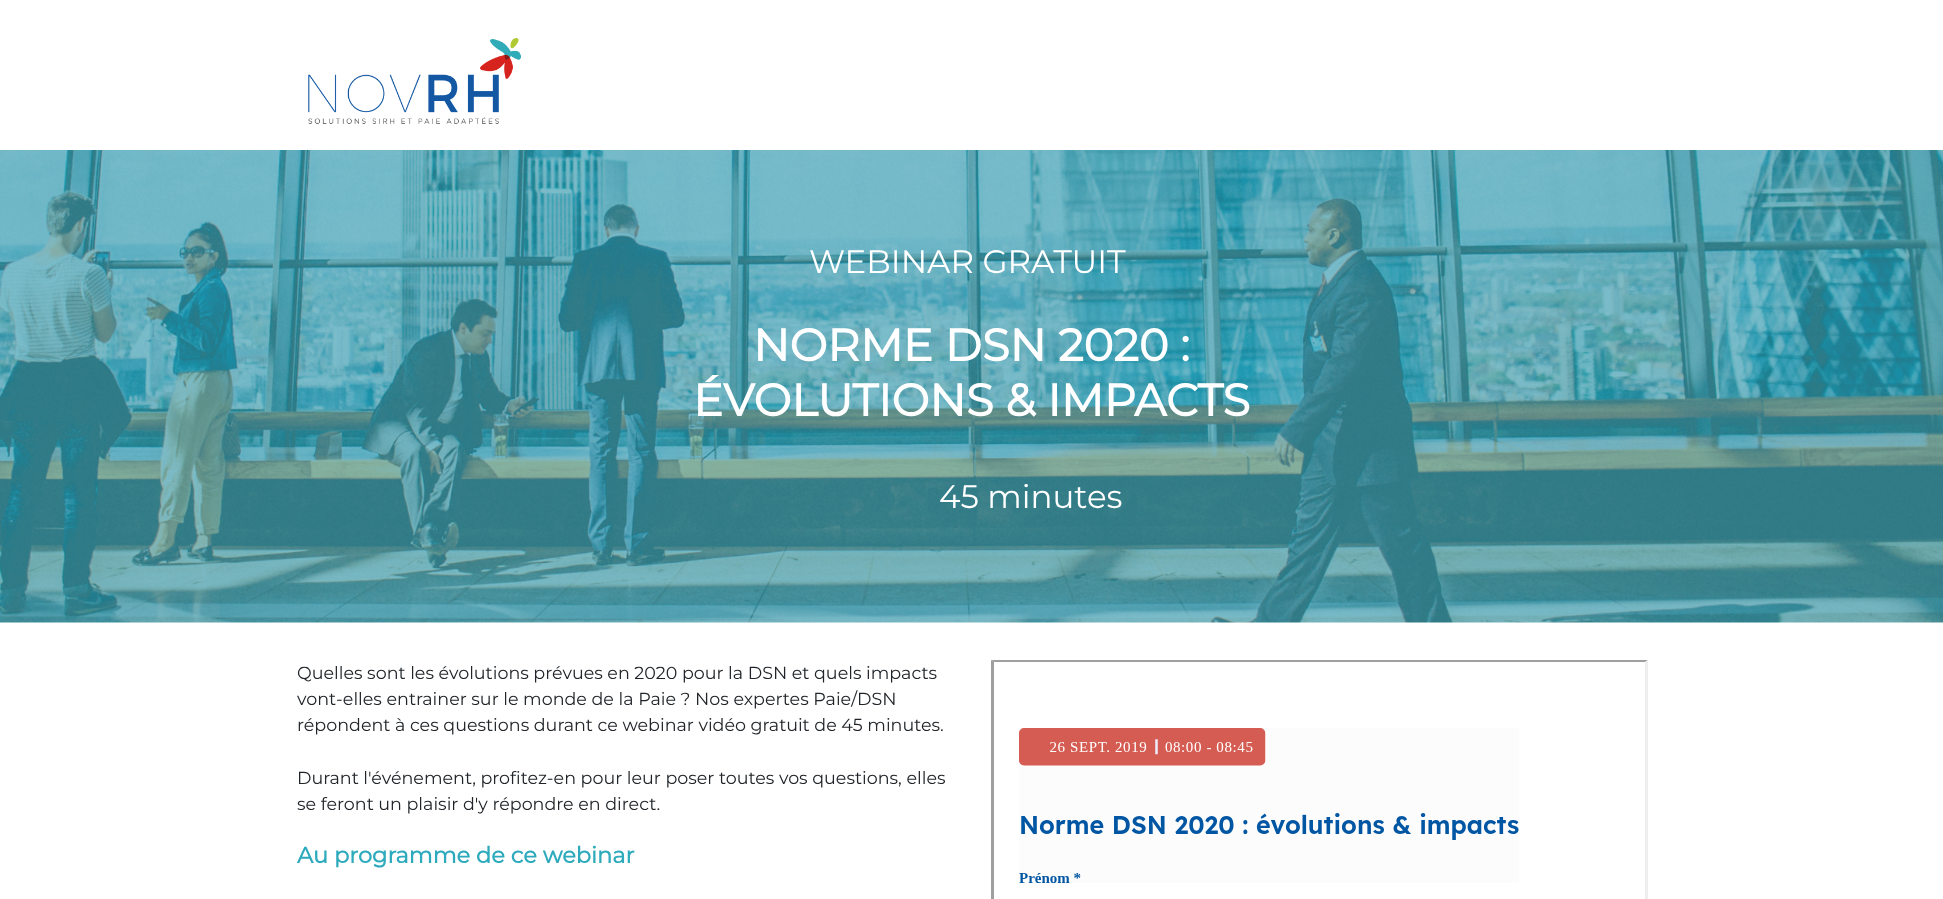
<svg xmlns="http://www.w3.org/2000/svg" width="1943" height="899">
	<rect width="100%" height="100%" fill="#FFFFFF" />
	<image x="308" y="38" width="213" height="86" href="assets/img1.png" />
	<image x="0" y="150" width="1943" height="473" href="assets/img2.png" />
	<text x="809" y="273" font-family="Montserrat" font-size="32.5" font-weight="100" fill="#FFFFFF">WEBINAR GRATUIT</text>
	<g font-family="Montserrat" font-size="45" font-weight="700" fill="#FFFFFF">
		<text x="753" y="361">NORME DSN 2020 :</text>
		<text x="693" y="416">É</text>
		<text x="723" y="416">VOLUTIONS &amp; IMPACTS</text>
	</g>
	<text x="939" y="508" font-family="Montserrat" font-size="32.5" font-weight="100" fill="#FFFFFF">45 minutes</text>
	<g font-family="Montserrat" font-size="17.5" font-weight="100" fill="#212529">
		<text x="297" y="679">Quelles sont les évolutions prévues en 2020 pour la DSN et quels impacts</text>
		<text x="297" y="705">vont-elles entrainer sur le monde de la Paie ? Nos expertes Paie/DSN</text>
		<text x="297" y="731">répondent à ces questions durant ce webinar vidéo gratuit de 45 minutes.</text>
		<text x="297" y="784">Durant l'événement, profitez-en pour leur poser toutes vos questions, elles</text>
		<text x="297" y="810">se feront un plaisir d'y répondre en direct.</text>
	</g>
	<text x="297" y="863" font-family="Montserrat" font-size="22.5" font-weight="700" fill="#2EAABD">Au programme de ce webinar</text>
	<path d="M991 660H1648L1645 662H994Z" fill="#9F9F9F" />
	<path d="M991 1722V660L994 662V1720Z" fill="#9F9F9F" />
	<image x="1019" y="728" width="500" height="155" href="assets/img3.png" />
	<path d="M1648 660V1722L1645 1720V662Z" fill="#EEEEEE" />
</svg>
